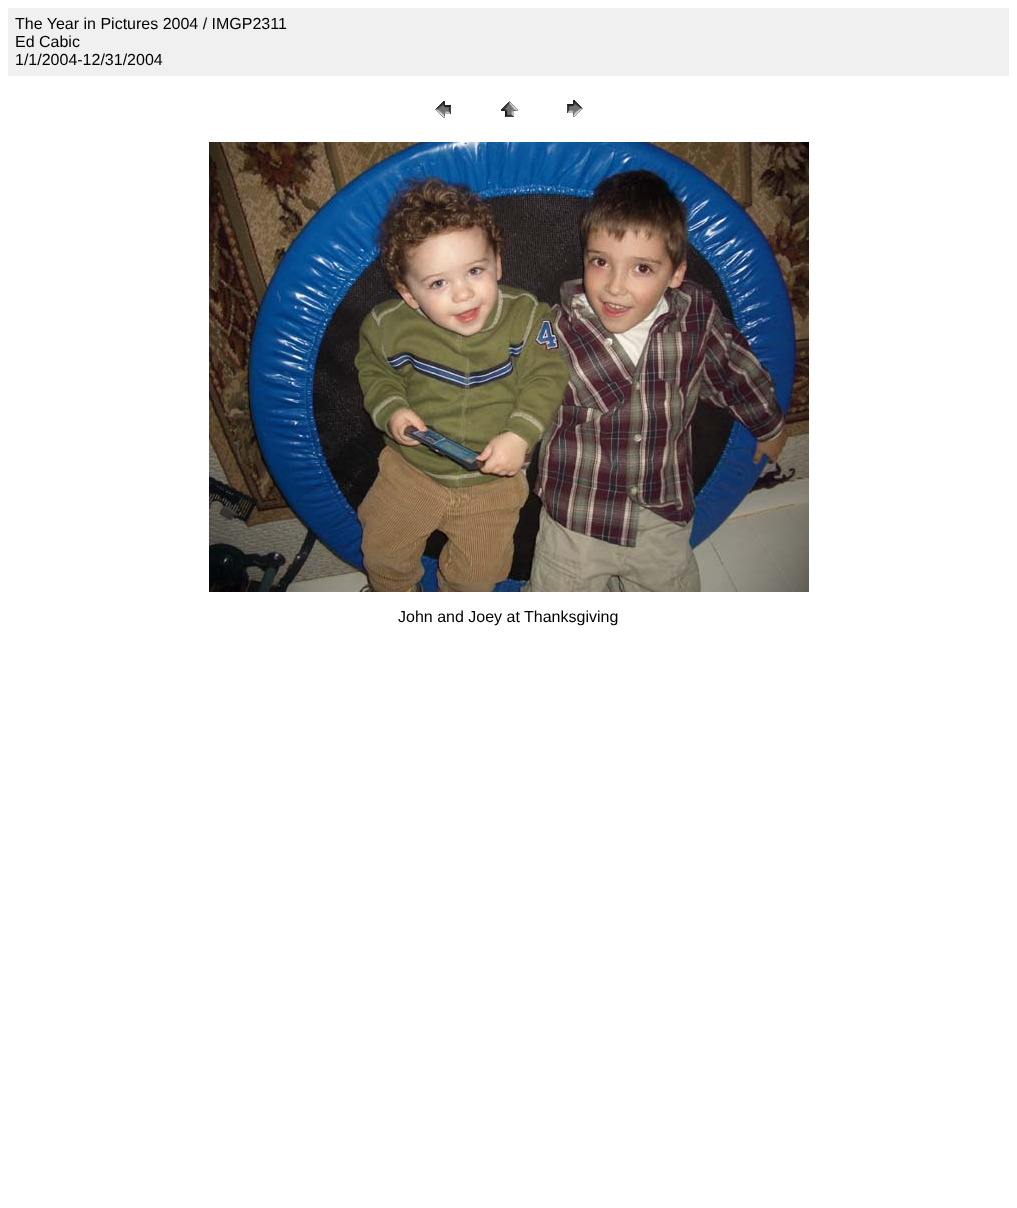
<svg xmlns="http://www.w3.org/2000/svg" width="1017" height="1208">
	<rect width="100%" height="100%" fill="#FFFFFF" />
	<rect x="8" y="8" width="1001" height="68" fill="#F0F0F0" />
	<g font-family="Liberation Sans" font-size="16" fill="#000000">
		<text x="15" y="29">The Year in Pictures 2004 / IMGP2311</text>
		<text x="15" y="47">Ed Cabic</text>
		<text x="15" y="65">1/1/2004-12/31/2004</text>
	</g>
	<image x="435" y="101" width="16" height="17" href="assets/img1.png" />
	<image x="501" y="101" width="17" height="16" href="assets/img2.png" />
	<image x="567" y="100" width="16" height="17" href="assets/img3.png" />
	<image x="209" y="142" width="600" height="450" href="assets/img4.png" />
	<text x="398" y="622" font-family="Liberation Sans" font-size="16" fill="#000000">John and Joey at Thanksgiving</text>
</svg>
